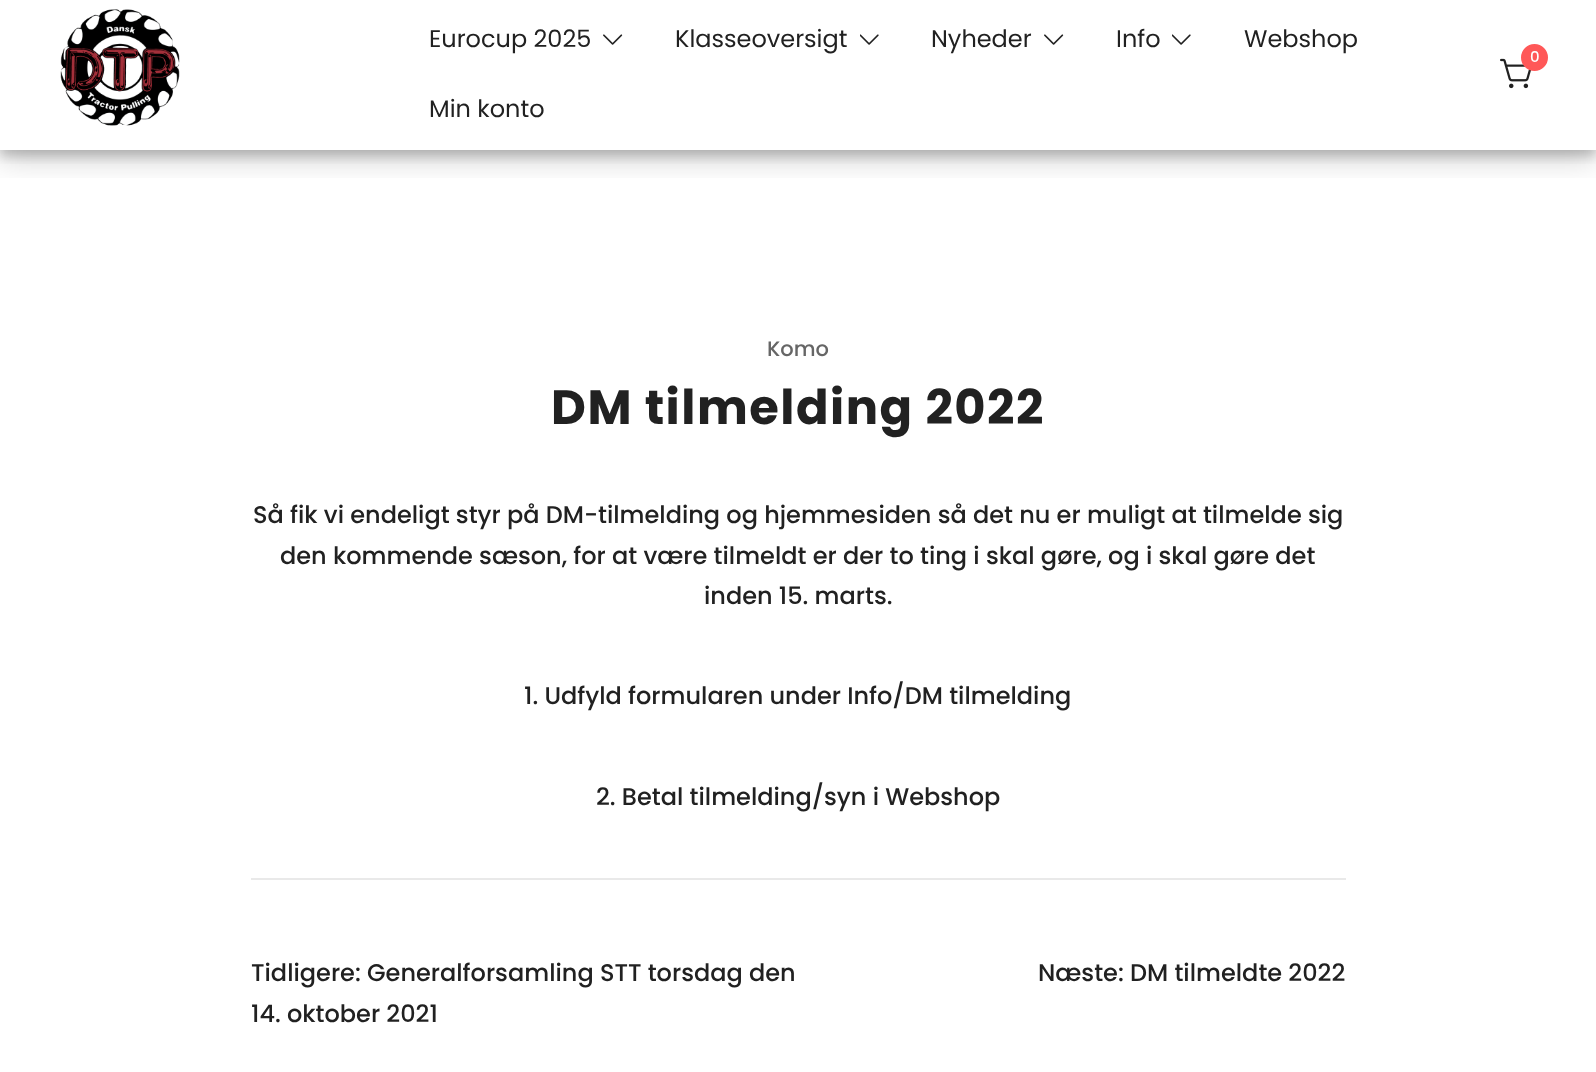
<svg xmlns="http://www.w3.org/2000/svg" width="1596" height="1072">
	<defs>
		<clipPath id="clip1"><rect x="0" y="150" width="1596" height="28" /></clipPath>
		<clipPath id="clip2"><rect x="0" y="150" width="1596" height="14" /></clipPath>
	</defs>
	<rect width="100%" height="100%" fill="#FFFFFF" />
	<g clip-path="url(#clip1)">
		<rect x="0" y="9" width="1596" height="150" fill="#000000" fill-opacity="0.19" filter="blur(15px)" />
	</g>
	<g clip-path="url(#clip2)">
		<rect x="0" y="6" width="1596" height="150" fill="#000000" fill-opacity="0.2" filter="blur(6px)" />
	</g>
	<image x="60" y="9" width="120" height="117" href="assets/img1.png" />
	<text x="429" y="47" font-family="Poppins" font-size="24" fill="#212121">Eurocup 2025</text>
	<image x="603" y="34" width="20" height="11" href="assets/img2.png" />
	<text x="675" y="47" font-family="Poppins" font-size="24" fill="#212121">Klasseoversigt</text>
	<image x="860" y="34" width="19" height="11" href="assets/img3.png" />
	<text x="931" y="47" font-family="Poppins" font-size="24" fill="#212121">Nyheder</text>
	<image x="1044" y="34" width="20" height="11" href="assets/img2.png" />
	<text x="1116" y="47" font-family="Poppins" font-size="24" fill="#212121">Info</text>
	<image x="1172" y="34" width="19" height="11" href="assets/img3.png" />
	<g font-family="Poppins" font-size="24" fill="#212121">
		<text x="1244" y="47">Webshop</text>
		<text x="429" y="117">Min konto</text>
	</g>
	<image x="1500" y="58" width="31" height="31" href="assets/img4.png" />
	<circle cx="1534.5" cy="57.5" r="12.5" fill="#FF5858" stroke="#FF5858" stroke-width="2" />
	<text x="1530" y="62" font-family="Poppins" font-size="15" font-weight="500" fill="#FFFFFF">0</text>
	<text x="767" y="356" font-family="Poppins" font-size="21" font-weight="500" fill="#666666">Komo</text>
	<text x="551" y="424" font-family="Poppins" font-size="48" font-weight="700" letter-spacing="1.5" fill="#212121">DM tilmelding 2022</text>
	<g font-family="Poppins" font-size="24" font-weight="500" fill="#212121">
		<text x="253" y="523">Så fik vi endeligt styr på DM-tilmelding og hjemmesiden så det nu er muligt at tilmelde sig</text>
		<text x="280" y="564">den kommende sæson, for at være tilmeldt er der to ting i skal gøre, og i skal gøre det</text>
		<text x="704" y="604">inden 15. marts.</text>
		<text x="524" y="704">1. Udfyld formularen under Info/DM tilmelding</text>
		<text x="596" y="805">2. Betal tilmelding/syn i Webshop</text>
	</g>
	<rect x="251" y="878" width="1095" height="2" fill="#E9E9E9" />
	<g font-family="Poppins" font-size="24" font-weight="500" fill="#212121">
		<text x="251" y="981">Tidligere: Generalforsamling STT torsdag den</text>
		<text x="251" y="1022">14. oktober 2021</text>
		<text x="1038" y="981">Næste: DM tilmeldte 2022</text>
	</g>
</svg>
